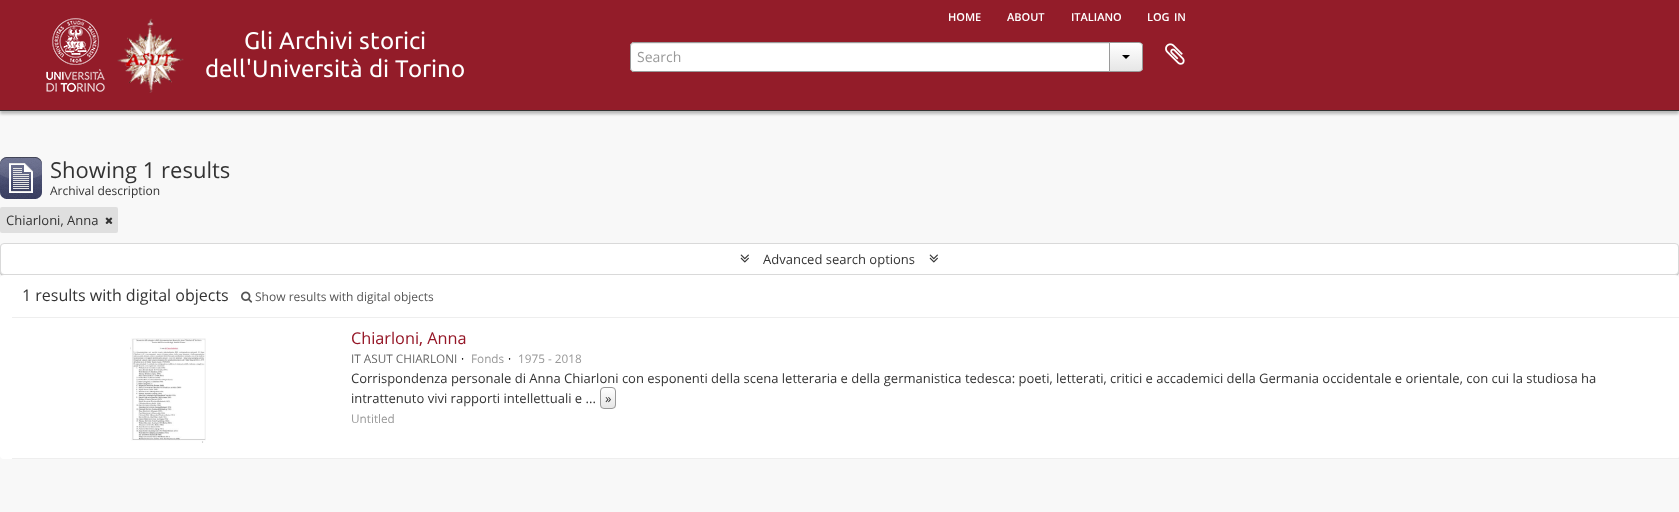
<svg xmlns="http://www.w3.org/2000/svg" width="1679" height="512">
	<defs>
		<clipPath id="clip1"><path d="M1109 42H1139C1141 42 1143 44 1143 46V68C1143 70 1141 72 1139 72H1109Z" /></clipPath>
		<linearGradient id="g1" gradientUnits="userSpaceOnUse" x1="1126" y1="43" x2="1126" y2="71"><stop offset="0" stop-color="#FFFFFF" /><stop offset="1" stop-color="#E6E6E6" /></linearGradient>
		<clipPath id="clip2"><rect x="600" y="387" width="16" height="22" rx="4" /></clipPath>
		<linearGradient id="g2" gradientUnits="userSpaceOnUse" x1="608" y1="388" x2="608" y2="408"><stop offset="0" stop-color="#FFFFFF" /><stop offset="1" stop-color="#E6E6E6" /></linearGradient>
	</defs>
	<rect width="100%" height="100%" fill="#F8F8F8" />
	<rect x="0" y="3" width="1679" height="111" fill="#000000" fill-opacity="0.25" filter="blur(1.5px)" />
	<rect x="0" y="0" width="1679" height="110" fill="#931C29" />
	<rect x="0" y="110" width="1679" height="1" fill="#333333" />
	<g font-family="Open Sans" font-size="11" font-weight="600" fill="#FFFFFF">
		<text x="948" y="21">HOME</text>
		<text x="1007" y="21">ABOUT</text>
		<text x="1071" y="21">ITALIANO</text>
		<text x="1147" y="21">LOG</text>
		<text x="1174" y="21">IN</text>
	</g>
	<image x="46" y="18" width="59" height="74" href="assets/img1.png" />
	<image x="117" y="18" width="67" height="75" href="assets/img2.png" />
	<image x="206" y="30" width="258" height="48" href="assets/img3.png" />
	<path d="M634 42H1110V72H634C632 72 630 70 630 68V46C630 44 632 42 634 42Z" fill="#FFFFFF" />
	<path d="M634 44H1109V43H634C632 43 631 45 631 47C631 45 632 44 634 44Z" fill="#ECECEC" />
	<path d="M634 42.5H1109.5V71.5H634C632 71.5 630.5 70 630.5 68V46C630.5 44 632 42.5 634 42.5Z" fill="none" stroke="#9A9A9A" />
	<text x="637" y="62" font-family="Open Sans" font-size="14" fill="#999999">Search</text>
	<g clip-path="url(#clip1)">
		<rect x="1110" y="43" width="33" height="28" fill="url(#g1)" />
	</g>
	<path d="M1109.5 42.5H1139C1141 42.5 1142.5 44 1142.5 46V68C1142.5 70 1141 71.5 1139 71.5H1109.5Z" fill="none" stroke="#9A9A9A" />
	<path d="M1122 55H1130L1126 59Z" fill="#000000" />
	<image x="1165" y="43" width="20" height="22" href="assets/img4.png" />
	<image x="0" y="157" width="42" height="42" href="assets/img5.png" />
	<text x="50" y="178" font-family="Open Sans" font-size="22" fill="#333333">Showing 1 results</text>
	<text x="50" y="195" font-family="Open Sans" font-size="12" fill="#333333">Archival description</text>
	<rect x="0" y="207" width="118" height="26" rx="2" fill="#DFDFDF" />
	<text x="6" y="225" font-family="Open Sans" font-size="13" fill="#333333">Chiarloni, Anna</text>
	<image x="105" y="217" width="8" height="7" href="assets/img6.png" />
	<rect x="0" y="244" width="1679" height="32" rx="4" fill="#000000" fill-opacity="0.2" filter="blur(0.5px)" />
	<rect x="0.5" y="243.5" width="1678" height="31" rx="3.5" fill="#FFFFFF" stroke="#D9D9D9" />
	<image x="740" y="254" width="9" height="9" href="assets/img7.png" />
	<text x="763" y="264" font-family="Open Sans" font-size="13" fill="#333333">Advanced search options</text>
	<image x="929" y="254" width="9" height="9" href="assets/img7.png" />
	<rect x="0" y="275" width="1679" height="184" rx="4" fill="#FFFFFF" />
	<rect x="12" y="317" width="1667" height="1" fill="#EEEEEE" />
	<text x="22" y="301" font-family="Open Sans" font-size="16" fill="#333333">1 results with digital objects</text>
	<image x="241" y="291" width="12" height="12" href="assets/img8.png" />
	<text x="255" y="301" font-family="Open Sans" font-size="12" fill="#555555">Show results with digital objects</text>
	<rect x="12" y="458" width="1667" height="1" fill="#EEEEEE" />
	<image x="130" y="338" width="76" height="105" href="assets/img9.png" />
	<text x="351" y="344" font-family="Open Sans" font-size="16.25" fill="#951626">Chiarloni, Anna</text>
	<text x="351" y="363" font-family="Open Sans" font-size="11.75" fill="#666666">IT ASUT CHIARLONI</text>
	<text x="461" y="363" font-family="Open Sans" font-size="11.75" fill="#000000">·</text>
	<text x="471" y="363" font-family="Open Sans" font-size="11.75" fill="#999999">Fonds</text>
	<text x="508" y="363" font-family="Open Sans" font-size="11.75" fill="#000000">·</text>
	<text x="518" y="363" font-family="Open Sans" font-size="11.75" fill="#999999">1975 - 2018</text>
	<g font-family="Open Sans" font-size="13" fill="#333333">
		<text x="351" y="383">Corrispondenza personale di Anna Chiarloni con esponenti della scena letteraria e della germanistica tedesca: poeti, letterati, critici e accademici della Germania occidentale e orientale, con cui la studiosa ha</text>
		<text x="351" y="403">intrattenuto vivi rapporti intellettuali e ...</text>
	</g>
	<g clip-path="url(#clip2)">
		<rect x="600" y="388" width="16" height="20" fill="url(#g2)" />
	</g>
	<rect x="600.5" y="387.5" width="15" height="21" rx="3.5" fill="none" stroke="#999999" />
	<text x="605" y="403" font-family="Open Sans" font-size="13" fill="#333333">»</text>
	<text x="351" y="423" font-family="Open Sans" font-size="11.75" fill="#999999">Untitled</text>
</svg>
